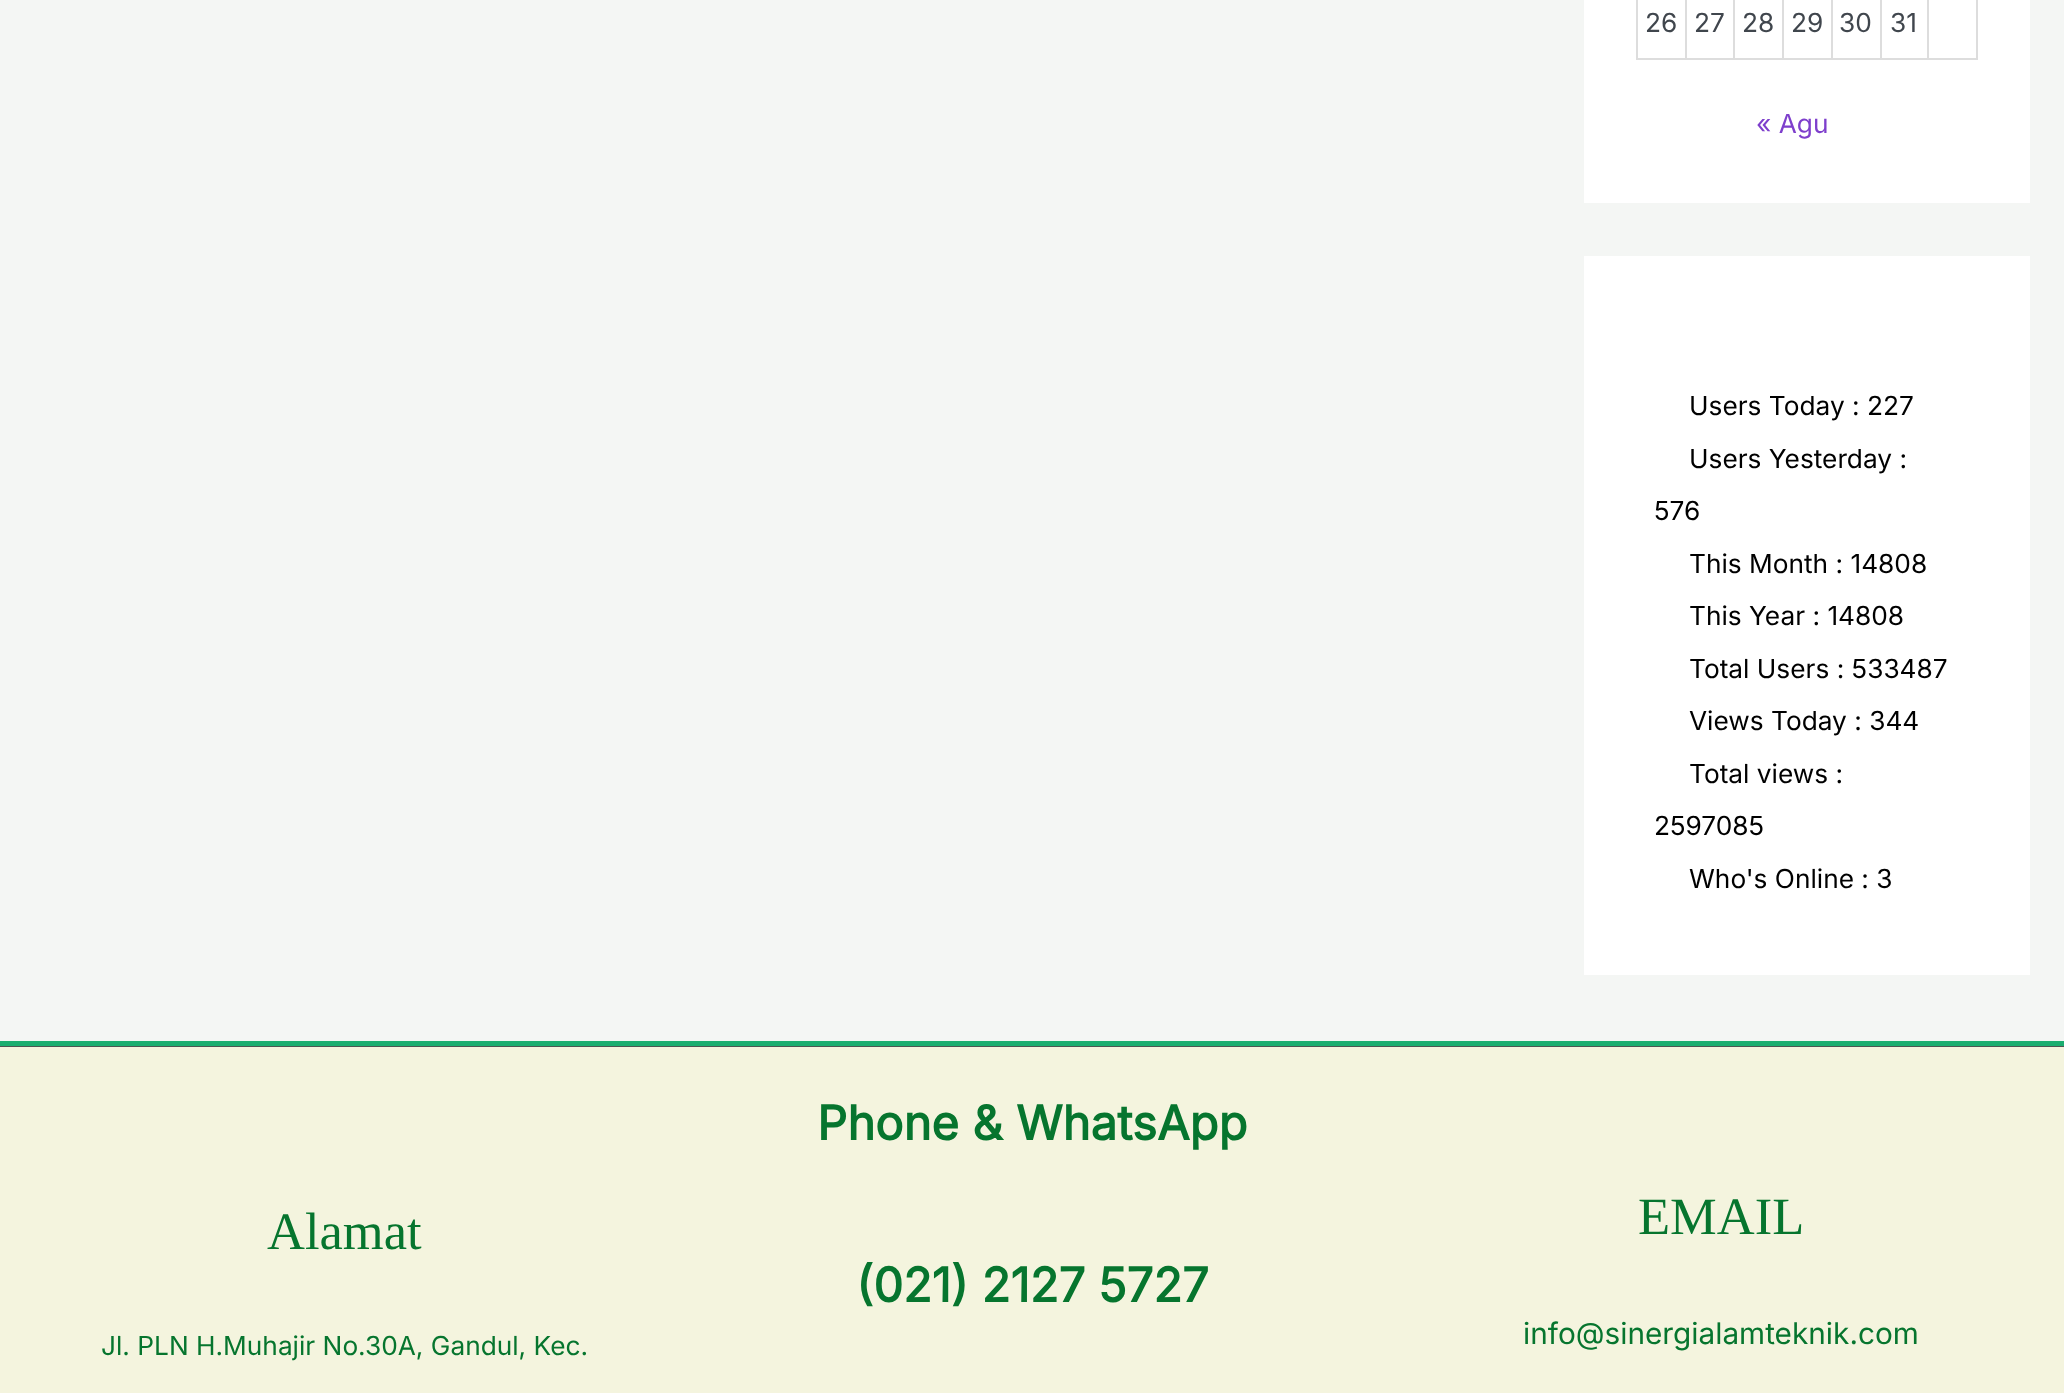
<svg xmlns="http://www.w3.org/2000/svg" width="2064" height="1393">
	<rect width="100%" height="100%" fill="#F4F6F4" />
	<rect x="1584" y="0" width="446" height="203" fill="#FFFFFF" />
	<rect x="1976" y="0" width="2" height="60" fill="#DDDDDD" />
	<rect x="1927" y="58" width="51" height="2" fill="#DDDDDD" />
	<rect x="1927" y="0" width="2" height="60" fill="#DDDDDD" />
	<rect x="1880" y="58" width="49" height="2" fill="#DDDDDD" />
	<rect x="1880" y="0" width="2" height="60" fill="#DDDDDD" />
	<rect x="1831" y="58" width="50" height="2" fill="#DDDDDD" />
	<rect x="1831" y="0" width="2" height="60" fill="#DDDDDD" />
	<rect x="1782" y="58" width="50" height="2" fill="#DDDDDD" />
	<rect x="1782" y="0" width="2" height="60" fill="#DDDDDD" />
	<rect x="1733" y="58" width="50" height="2" fill="#DDDDDD" />
	<rect x="1733" y="0" width="2" height="60" fill="#DDDDDD" />
	<rect x="1685" y="58" width="49" height="2" fill="#DDDDDD" />
	<rect x="1685" y="0" width="2" height="60" fill="#DDDDDD" />
	<rect x="1636" y="58" width="51" height="2" fill="#DDDDDD" />
	<rect x="1636" y="0" width="2" height="60" fill="#DDDDDD" />
	<g font-family="Inter" font-size="26.25" fill="#40464D">
		<text x="1645" y="32">26</text>
		<text x="1694" y="32">27</text>
		<text x="1742" y="32">28</text>
		<text x="1791" y="32">29</text>
		<text x="1839" y="32">30</text>
		<text x="1890" y="32">31</text>
	</g>
	<text x="1756" y="133" font-family="Inter" font-size="26.25" fill="#7E3FCC">« Agu</text>
	<rect x="1584" y="256" width="446" height="719" fill="#FFFFFF" />
	<g font-family="Inter" font-size="26.25" fill="#000000">
		<text x="1689" y="415">Users Today : 227</text>
		<text x="1689" y="468">Users Yesterday :</text>
		<text x="1654" y="520">576</text>
		<text x="1689" y="573">This Month : 14808</text>
		<text x="1689" y="625">This Year : 14808</text>
		<text x="1689" y="678">Total Users : 533487</text>
		<text x="1689" y="730">Views Today : 344</text>
		<text x="1689" y="783">Total views :</text>
		<text x="1654" y="835">2597085</text>
		<text x="1689" y="888">Who's Online : 3</text>
	</g>
	<rect x="0" y="1046" width="2064" height="1" fill="#4E5652" />
	<rect x="0" y="1047" width="2064" height="346" fill="#F4F4DE" />
	<rect x="0" y="1041" width="2064" height="5" fill="#1BAE70" />
	<text x="267" y="1249" font-family="Liberation Serif" font-size="52.5" fill="#06752E">Alamat</text>
	<text x="101" y="1355" font-family="Inter" font-size="26.25" fill="#06752E">Jl. PLN H.Muhajir No.30A, Gandul, Kec.</text>
	<g font-family="Inter" font-size="47.25" font-weight="700" fill="#06752E">
		<text x="817" y="1140">Phone &amp; WhatsApp</text>
		<text x="856" y="1302">(021) 2127 5727</text>
	</g>
	<text x="1638" y="1234" font-family="Liberation Serif" font-size="52.5" fill="#06752E">EMAIL</text>
	<text x="1523" y="1344" font-family="Inter" font-size="29.75" fill="#06752E">info@sinergialamteknik.com</text>
</svg>
